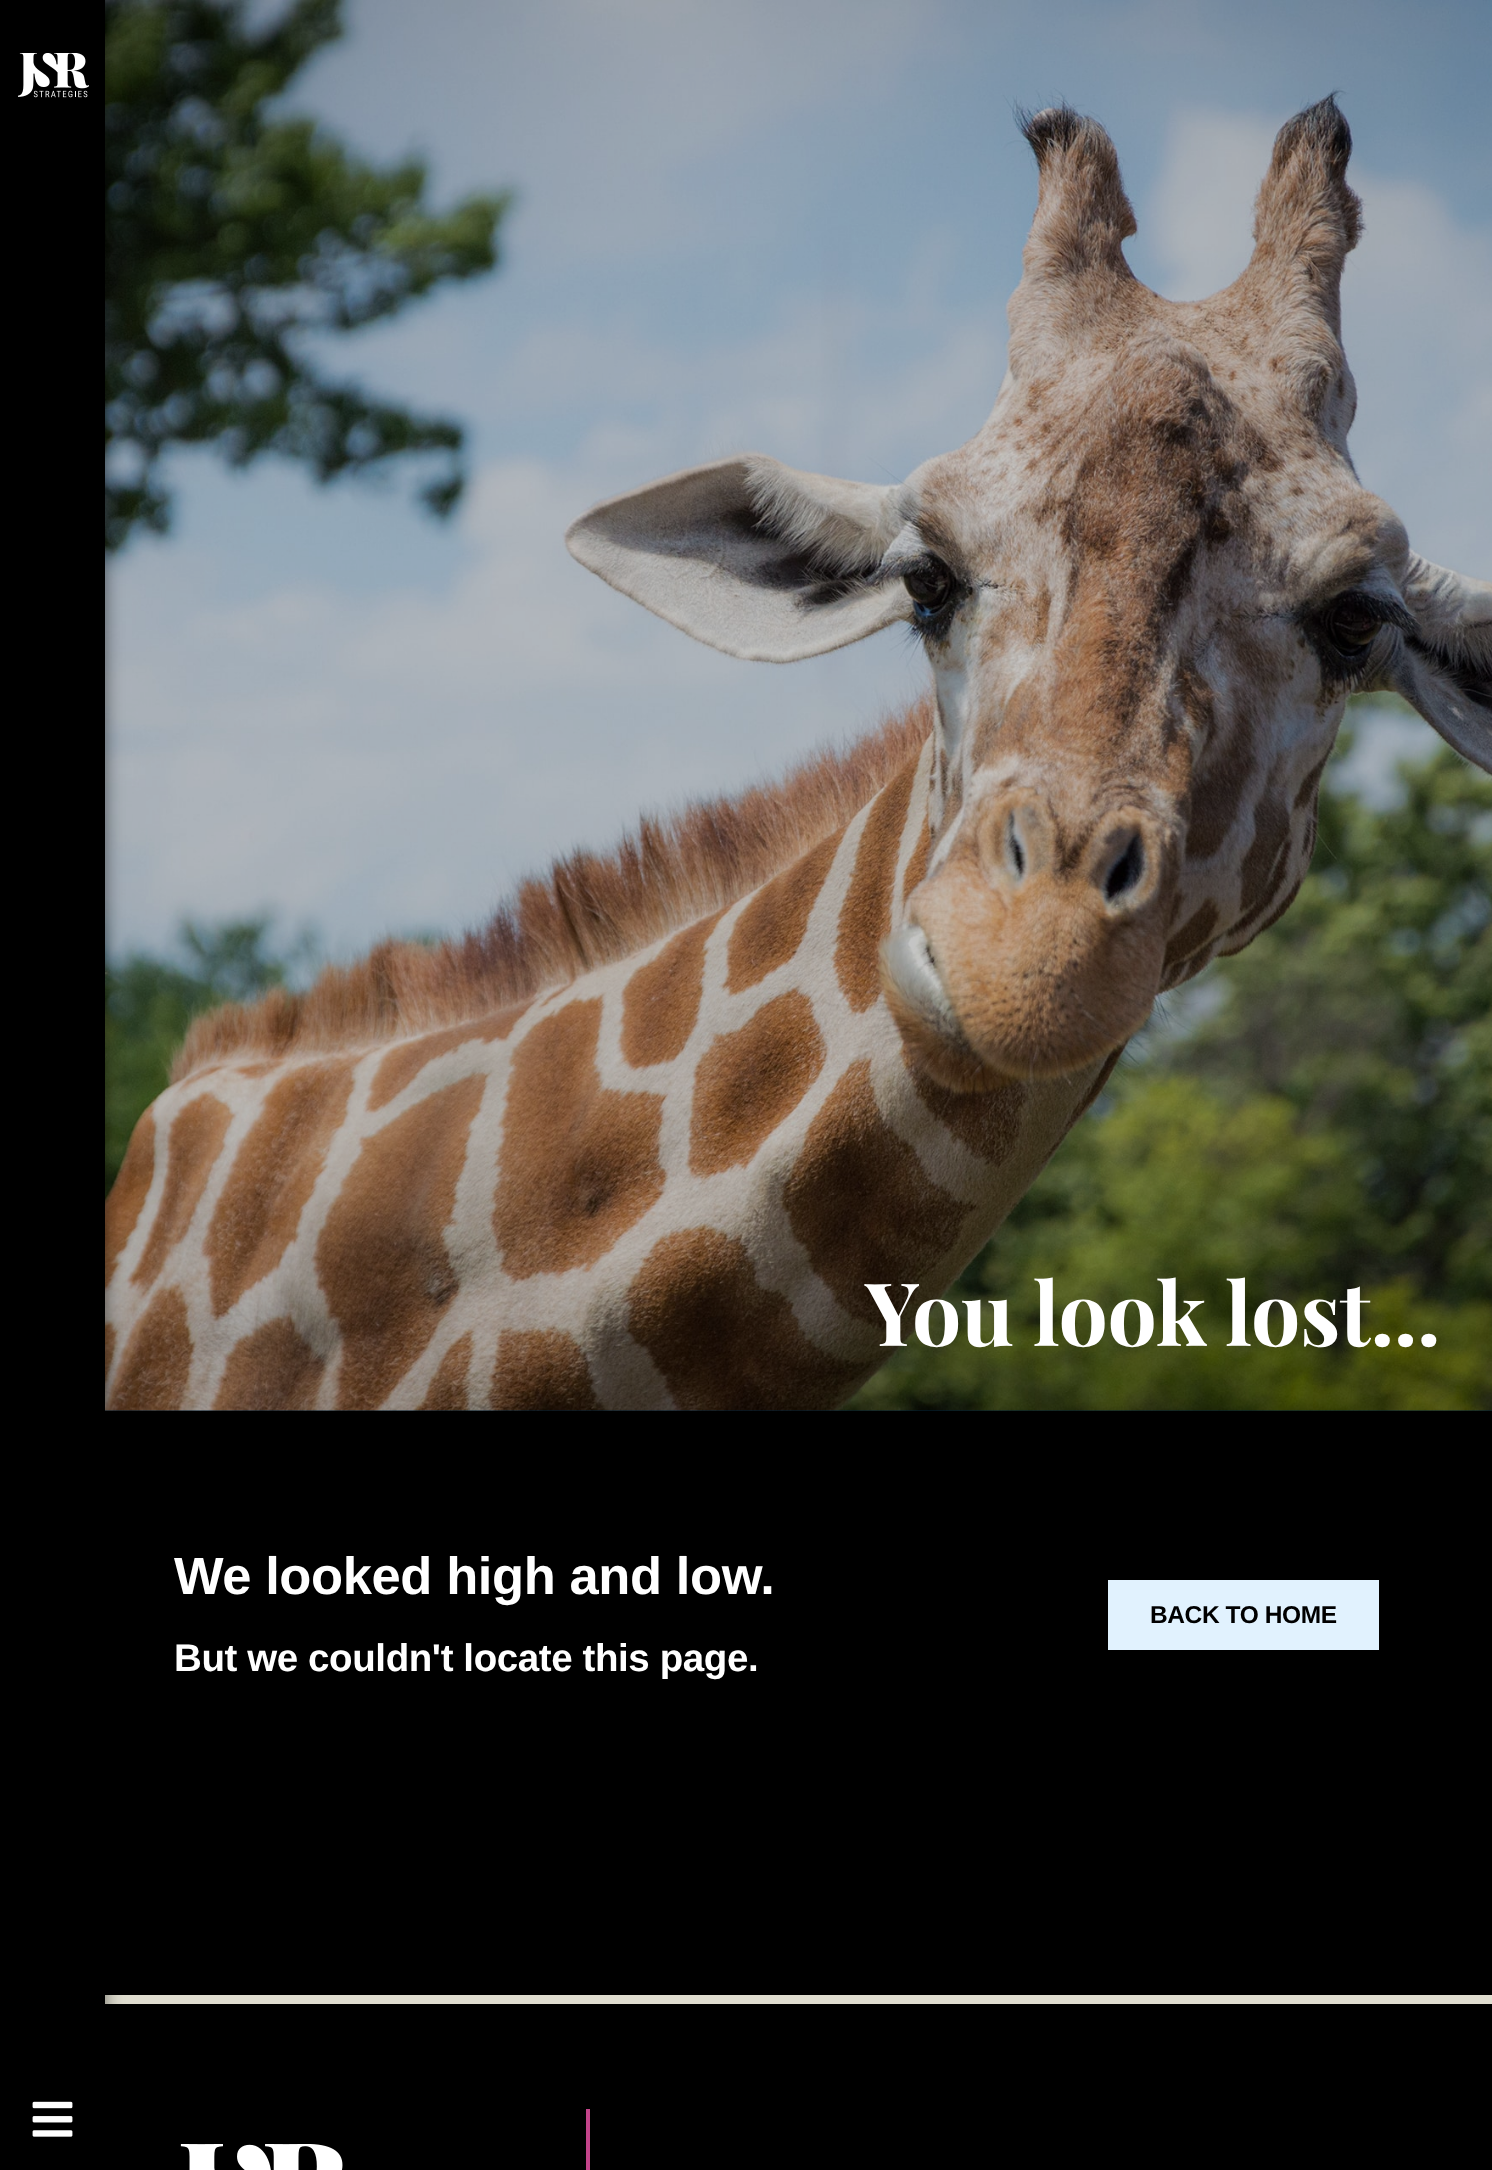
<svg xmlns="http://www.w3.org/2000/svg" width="1492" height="2170">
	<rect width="100%" height="100%" fill="#002138" />
	<image x="105" y="0" width="1387" height="1411" href="assets/img3.png" />
	<rect x="105" y="1411" width="1387" height="584" fill="#000000" />
	<rect x="105" y="2004" width="1387" height="166" fill="#000000" />
	<rect x="105" y="1995" width="1387" height="9" fill="#DFDDCF" />
	<rect x="0" y="0" width="105" height="2170" fill="#000000" fill-opacity="0.5" filter="blur(9px)" />
	<rect x="0" y="0" width="105" height="2170" fill="#000000" />
	<image x="18" y="53" width="71" height="45" href="assets/img1.png" />
	<image x="32" y="2101" width="41" height="36" href="assets/img2.png" />
	<text x="865" y="1346" font-family="Playfair Display" font-size="87.5" font-weight="700" letter-spacing="-0.4" fill="#FFFFFF">You look lost...</text>
	<text x="174" y="1594" font-family="Liberation Sans" font-size="52.5" font-weight="700" letter-spacing="-0.4" fill="#FFFFFF">We looked high and low.</text>
	<text x="174" y="1671" font-family="Liberation Sans" font-size="38.5" font-weight="700" letter-spacing="-0.4" fill="#FFFFFF">But we couldn't locate this page.</text>
	<rect x="1108" y="1580" width="271" height="70" fill="#E1F2FE" />
	<text x="1150" y="1623" font-family="Liberation Sans" font-size="24.5" font-weight="700" letter-spacing="-0.4" fill="#000000">BACK TO HOME</text>
	<rect x="586" y="2109" width="4" height="61" fill="#C4448A" />
	<image x="180" y="2144" width="163" height="26" href="assets/img4.png" />
</svg>
